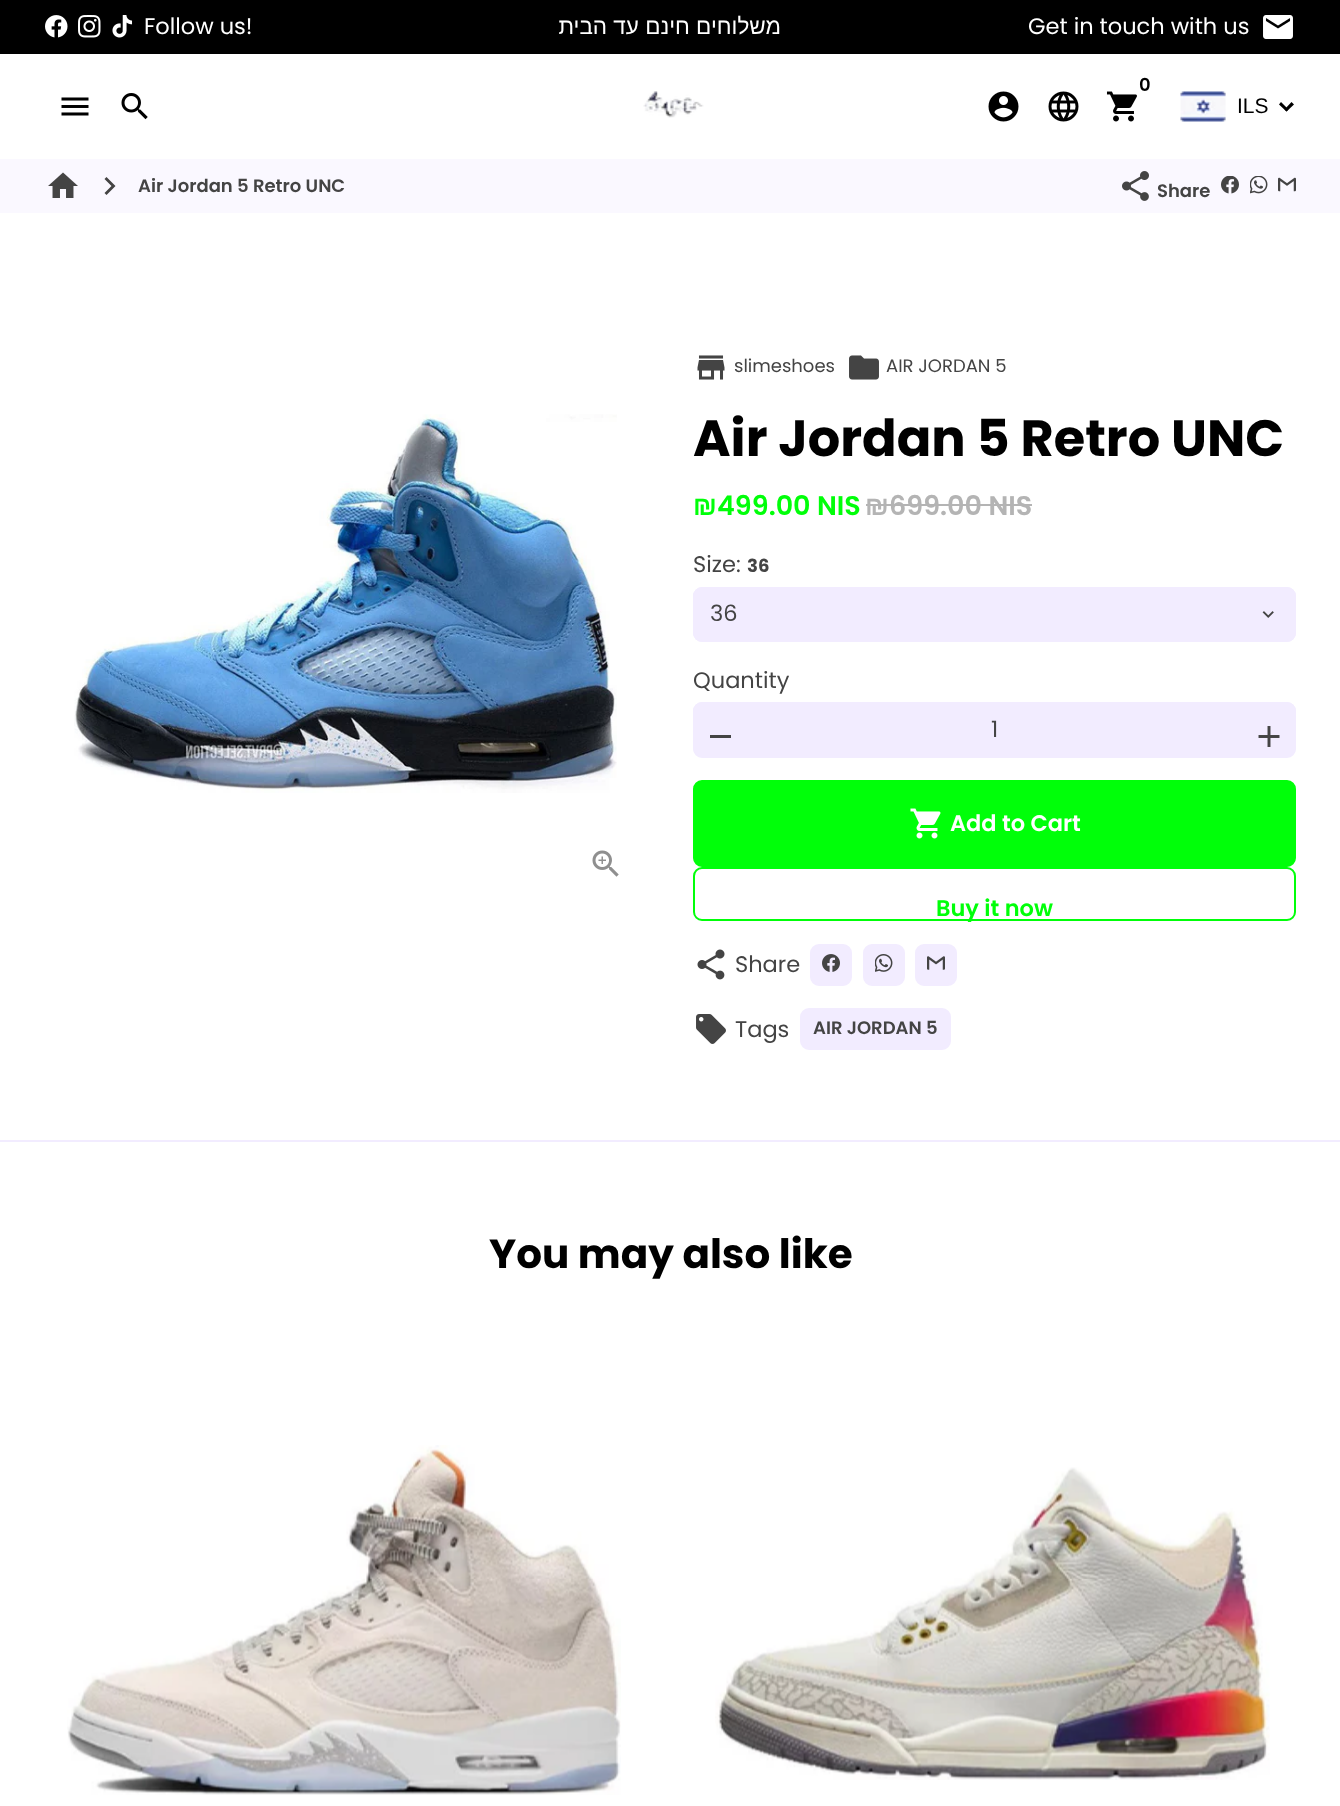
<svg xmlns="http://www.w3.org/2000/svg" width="1340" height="1806">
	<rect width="100%" height="100%" fill="#FFFFFF" />
	<rect x="0" y="0" width="1340" height="54" fill="#000000" />
	<image x="45" y="15" width="23" height="23" href="assets/img1.png" />
	<image x="78" y="15" width="23" height="23" href="assets/img2.png" />
	<image x="112" y="15" width="21" height="23" href="assets/img3.png" />
	<text x="144" y="34" font-family="Poppins" font-size="22.5" fill="#FFFFFF">Follow us!</text>
	<text x="781" y="34" font-family="Liberation Sans" font-size="22.5" direction="rtl" fill="#FFFFFF">משלוחים חינם עד הבית</text>
	<text x="1028" y="34" font-family="Poppins" font-size="22.5" fill="#FFFFFF">Get in touch with us</text>
	<image x="1263" y="15" width="30" height="24" href="assets/img4.png" />
	<image x="61" y="97" width="28" height="19" href="assets/img5.png" />
	<image x="121" y="93" width="27" height="27" href="assets/img6.png" />
	<image x="643" y="91" width="61" height="27" href="assets/img7.png" />
	<text x="1139" y="91" font-family="Poppins" font-size="18" font-weight="600" fill="#000000">0</text>
	<image x="1106" y="91" width="31" height="31" href="assets/img8.png" />
	<image x="988" y="91" width="31" height="31" href="assets/img9.png" />
	<image x="1048" y="91" width="31" height="31" href="assets/img10.png" />
	<image x="1180" y="91" width="46" height="31" href="assets/img11.png" />
	<text x="1237" y="113" font-family="Liberation Sans" font-size="21" fill="#000000">ILS</text>
	<path d="M1291.5 102L1294 104.5L1286.5 111.5L1284.5 109.5Z" fill="#000000" />
	<path d="M1281 102L1288.5 109.5L1286.5 111.5L1279 104.5Z" fill="#000000" />
	<rect x="0" y="159" width="1340" height="54" fill="#FAF8FF" />
	<image x="48" y="172" width="30" height="26" href="assets/img12.png" />
	<path d="M104.5 193L111.5 186L104.5 179L106.5 177L115.5 186L106.5 195Z" fill="#444444" />
	<text x="138" y="192" font-family="Poppins" font-size="18" font-weight="600" fill="#444444">Air Jordan 5 Retro UNC</text>
	<image x="1122" y="171" width="27" height="30" href="assets/img13.png" />
	<text x="1157" y="197" font-family="Poppins" font-size="18" font-weight="600" fill="#444444">Share</text>
	<image x="1221" y="176" width="18" height="18" href="assets/img14.png" />
	<image x="1250" y="176" width="18" height="18" href="assets/img15.png" />
	<image x="1278" y="177" width="18" height="15" href="assets/img16.png" />
	<image x="74" y="414" width="543" height="379" href="assets/img17.png" />
	<image x="592" y="850" width="27" height="27" href="assets/img18.png" />
	<image x="697" y="355" width="28" height="25" href="assets/img19.png" />
	<text x="734" y="372" font-family="Poppins" font-size="18" fill="#444444">slimeshoes</text>
	<image x="849" y="355" width="30" height="25" href="assets/img20.png" />
	<text x="886" y="372" font-family="Poppins" font-size="18" fill="#444444">AIR JORDAN 5</text>
	<text x="693" y="456" font-family="Poppins" font-size="51" font-weight="700" fill="#000000">Air Jordan 5 Retro UNC</text>
	<text x="693" y="515" font-family="Liberation Sans" font-size="27" font-weight="700" fill="#00FF09">₪</text>
	<text x="717" y="515" font-family="Poppins" font-size="27" font-weight="600" fill="#00FF09">499.00 NIS</text>
	<text x="865" y="515" font-family="Liberation Sans" font-size="27" font-weight="700" fill="#B4B4B4">₪</text>
	<text x="889" y="515" font-family="Poppins" font-size="27" font-weight="600" fill="#B4B4B4">699.00 NIS</text>
	<rect x="866" y="504" width="166" height="2" fill="#B4B4B4" />
	<text x="693" y="572" font-family="Poppins" font-size="22.5" fill="#444444">Size:</text>
	<text x="747" y="572" font-family="Poppins" font-size="18" font-weight="700" fill="#444444">36</text>
	<rect x="693" y="587" width="603" height="55" rx="9" fill="#F2ECFF" />
	<image x="1262" y="611" width="12" height="7" href="assets/img21.png" />
	<rect x="694" y="588" width="601" height="53" rx="8" fill="none" stroke="#F2ECFF" stroke-width="2" />
	<g font-family="Poppins" font-size="22.5" fill="#444444">
		<text x="710" y="621">36</text>
		<text x="693" y="688">Quantity</text>
	</g>
	<rect x="694" y="703" width="601" height="54" rx="8" fill="#F2ECFF" stroke="#F2ECFF" stroke-width="2" />
	<rect x="693" y="702" width="54" height="54" rx="9" fill="#F2ECFF" />
	<rect x="710" y="735" width="21" height="3" fill="#444444" />
	<text x="991" y="737" font-family="Poppins" font-size="22.5" fill="#444444">1</text>
	<rect x="1242" y="702" width="54" height="54" rx="9" fill="#F2ECFF" />
	<image x="1258" y="726" width="22" height="21" href="assets/img22.png" />
	<rect x="694" y="781" width="601" height="85" rx="8" fill="#00FF09" stroke="#00FF09" stroke-width="2" />
	<image x="910" y="808" width="31" height="31" href="assets/img23.png" />
	<text x="950" y="831" font-family="Poppins" font-size="22.5" font-weight="600" fill="#FFFFFF">Add to Cart</text>
	<rect x="694" y="868" width="601" height="52" rx="8" fill="none" stroke="#00FF09" stroke-width="2" />
	<text x="936" y="916" font-family="Poppins" font-size="22.5" font-weight="600" fill="#00FF09">Buy it now</text>
	<image x="697" y="949" width="28" height="31" href="assets/img24.png" />
	<text x="735" y="972" font-family="Poppins" font-size="22.5" fill="#444444">Share</text>
	<rect x="811" y="945" width="40" height="40" rx="8" fill="#F2ECFF" stroke="#F2ECFF" stroke-width="2" />
	<image x="822" y="954" width="18" height="18" href="assets/img25.png" />
	<rect x="864" y="945" width="40" height="40" rx="8" fill="#F2ECFF" stroke="#F2ECFF" stroke-width="2" />
	<image x="875" y="954" width="18" height="18" href="assets/img26.png" />
	<rect x="916" y="945" width="40" height="40" rx="8" fill="#F2ECFF" stroke="#F2ECFF" stroke-width="2" />
	<image x="927" y="956" width="18" height="14" href="assets/img27.png" />
	<image x="696" y="1014" width="30" height="30" href="assets/img28.png" />
	<text x="735" y="1037" font-family="Poppins" font-size="22.5" fill="#444444">Tags</text>
	<rect x="801" y="1009" width="149" height="40" rx="8" fill="#F2ECFF" stroke="#F2ECFF" stroke-width="2" />
	<text x="813" y="1034" font-family="Poppins" font-size="18" font-weight="600" fill="#444444">AIR JORDAN 5</text>
	<rect x="0" y="1140" width="1340" height="2" fill="#F2ECFF" />
	<text x="489" y="1268" font-family="Poppins" font-size="40.5" font-weight="700" fill="#000000">You may also like</text>
	<image x="67" y="1445" width="554" height="350" href="assets/img29.png" />
	<image x="715" y="1467" width="555" height="313" href="assets/img30.png" />
</svg>
